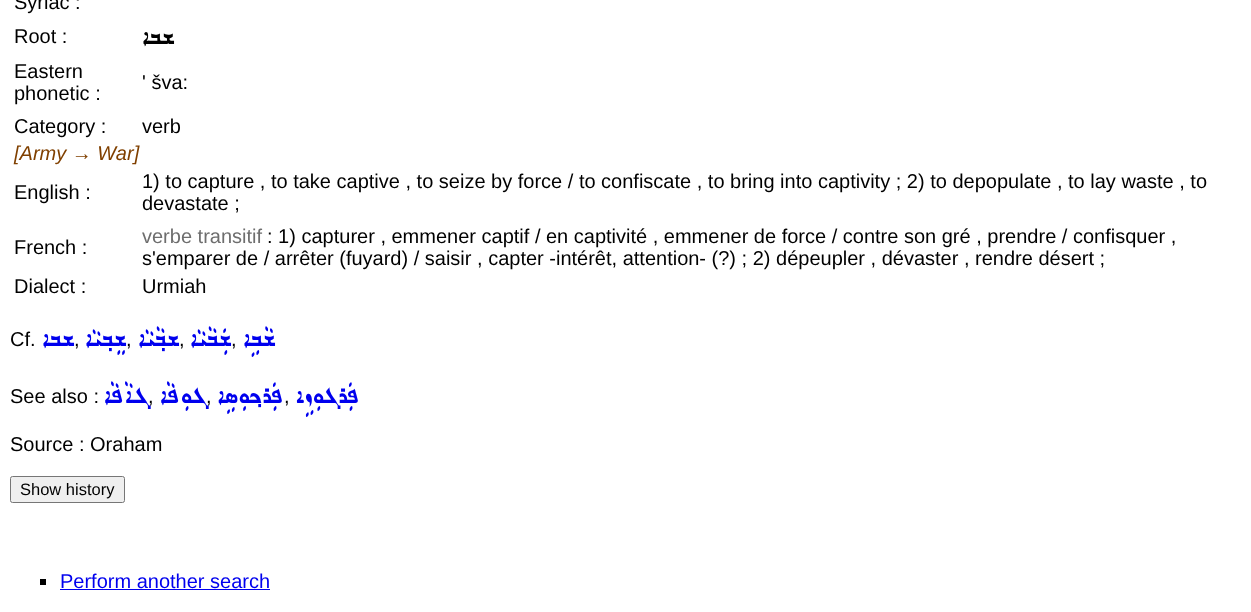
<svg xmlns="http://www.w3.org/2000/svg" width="1251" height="612">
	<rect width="100%" height="100%" fill="#FFFFFF" />
	<g font-family="Liberation Sans" font-size="20" fill="#000000">
		<text x="14" y="9">Syriac :</text>
		<text x="14" y="43">Root :</text>
	</g>
	<text x="174" y="44" font-family="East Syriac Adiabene" font-size="32" direction="rtl" fill="#000000">ܫܒܐ</text>
	<g font-family="Liberation Sans" font-size="20" fill="#000000">
		<text x="14" y="78">Eastern</text>
		<text x="14" y="100">phonetic :</text>
		<text x="142" y="89">' šva:</text>
		<text x="14" y="133">Category :</text>
		<text x="142" y="133">verb</text>
	</g>
	<text x="14" y="160" font-family="Liberation Sans" font-size="20" font-style="italic" fill="#804000">[Army → War]</text>
	<g font-family="Liberation Sans" font-size="20" fill="#000000">
		<text x="14" y="199">English :</text>
		<text x="142" y="188">1) to capture , to take captive , to seize by force / to confiscate , to bring into captivity ; 2) to depopulate , to lay waste , to</text>
		<text x="142" y="210">devastate ;</text>
		<text x="14" y="254">French :</text>
	</g>
	<text x="142" y="243" font-family="Liberation Sans" font-size="20" fill="#6E6E6E">verbe transitif</text>
	<g font-family="Liberation Sans" font-size="20" fill="#000000">
		<text x="267" y="243">: 1) capturer , emmener captif / en captivité , emmener de force / contre son gré , prendre / confisquer ,</text>
		<text x="142" y="265">s'emparer de / arrêter (fuyard) / saisir , capter -intérêt, attention- (?) ; 2) dépeupler , dévaster , rendre désert ;</text>
		<text x="14" y="293">Dialect :</text>
		<text x="142" y="293">Urmiah</text>
		<text x="10" y="346">Cf.</text>
	</g>
	<text x="74" y="346" font-family="East Syriac Adiabene" font-size="32" direction="rtl" fill="#0000EE">ܫܒܐ</text>
	<text x="74" y="346" font-family="Liberation Sans" font-size="20" fill="#000000">,</text>
	<text x="126" y="346" font-family="East Syriac Adiabene" font-size="32" direction="rtl" fill="#0000EE">ܫܸܒ݂ܝܵܐ</text>
	<text x="126" y="346" font-family="Liberation Sans" font-size="20" fill="#000000">,</text>
	<text x="179" y="346" font-family="East Syriac Adiabene" font-size="32" direction="rtl" fill="#0000EE">ܫܒ݂ܵܝܵܐ</text>
	<text x="179" y="346" font-family="Liberation Sans" font-size="20" fill="#000000">,</text>
	<text x="231" y="346" font-family="East Syriac Adiabene" font-size="32" direction="rtl" fill="#0000EE">ܫܲܒܵܝܵܐ</text>
	<text x="231" y="346" font-family="Liberation Sans" font-size="20" fill="#000000">,</text>
	<text x="275" y="346" font-family="East Syriac Adiabene" font-size="32" direction="rtl" fill="#0000EE">ܫܵܒܹܐ</text>
	<text x="10" y="403" font-family="Liberation Sans" font-size="20" fill="#000000">See also :</text>
	<g font-family="East Syriac Adiabene" font-size="32" direction="rtl" fill="#0000EE">
		<text x="148" y="403">ܓܐܵܦܵܐ</text>
		<text x="206" y="403">ܓܘܼܦܵܐ</text>
		<text x="284" y="403">ܦܲܪܟ݂ܘܼܣܹܐ</text>
		<text x="360" y="403">ܦܲܪܓܘܼܙܹܐ</text>
	</g>
	<g font-family="Liberation Sans" font-size="20" fill="#000000">
		<text x="148" y="403">,</text>
		<text x="206" y="403">,</text>
		<text x="284" y="403">,</text>
		<text x="10" y="451">Source : Oraham</text>
	</g>
	<rect x="10.5" y="476.5" width="114" height="26" rx="2" fill="#EFEFEF" stroke="#767676" />
	<text x="20" y="495" font-family="Liberation Sans" font-size="16.5" fill="#000000">Show history</text>
	<rect x="40" y="579" width="6" height="6" fill="#000000" />
	<text x="60" y="588" font-family="Liberation Sans" font-size="20" fill="#0000EE">Perform another search</text>
	<rect x="60" y="589" width="210" height="1" fill="#0000EE" />
</svg>
